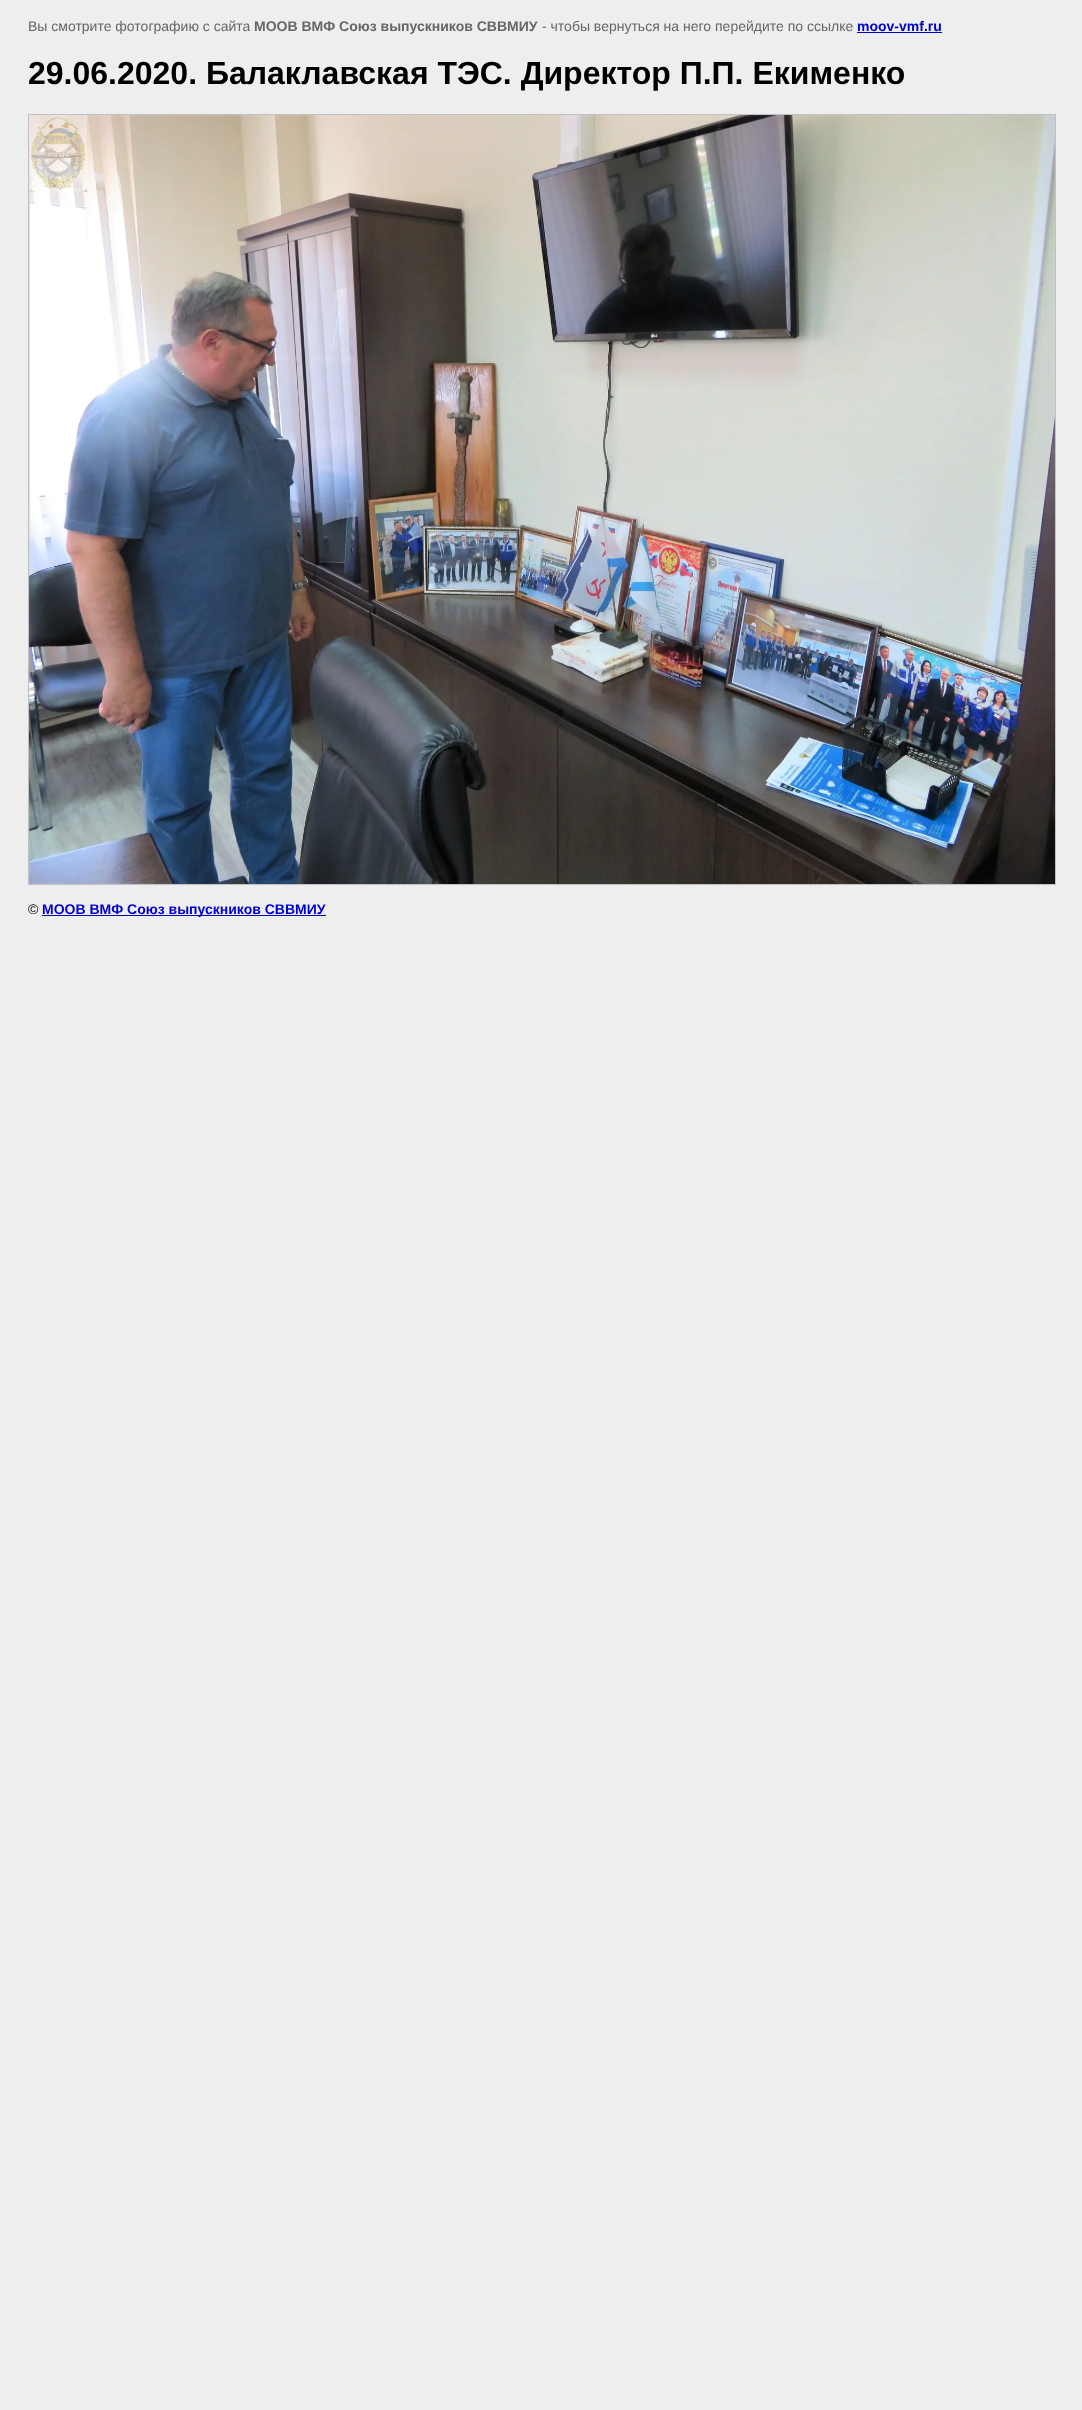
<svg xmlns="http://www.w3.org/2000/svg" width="1082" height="2410">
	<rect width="100%" height="100%" fill="#EEEEEE" />
	<text x="28" y="31" font-family="Liberation Sans" font-size="14" fill="#666666">Вы смотрите фотографию с сайта</text>
	<text x="254" y="31" font-family="Liberation Sans" font-size="14" font-weight="700" fill="#666666">МООВ ВМФ Союз выпускников СВВМИУ</text>
	<text x="542" y="31" font-family="Liberation Sans" font-size="14" fill="#666666">- чтобы вернуться на него перейдите по ссылке</text>
	<text x="857" y="31" font-family="Liberation Sans" font-size="14" font-weight="700" fill="#0000CC">moov-vmf.ru</text>
	<rect x="857" y="32" width="85" height="1" fill="#0000CC" />
	<text x="28" y="84" font-family="Liberation Sans" font-size="32" font-weight="700" fill="#000000">29.06.2020. Балаклавская ТЭС. Директор П.П. Екименко</text>
	<rect x="28.5" y="114.5" width="1027" height="770" fill="none" stroke="#C0C0C0" />
	<image x="29" y="115" width="1026" height="769" href="assets/img1.png" />
	<text x="28" y="914" font-family="Liberation Sans" font-size="14" fill="#000000">©</text>
	<rect x="42" y="915" width="284" height="1" fill="#0000CC" />
	<text x="42" y="914" font-family="Liberation Sans" font-size="14" font-weight="700" fill="#0000CC">МООВ ВМФ Союз выпускников СВВМИУ</text>
</svg>
